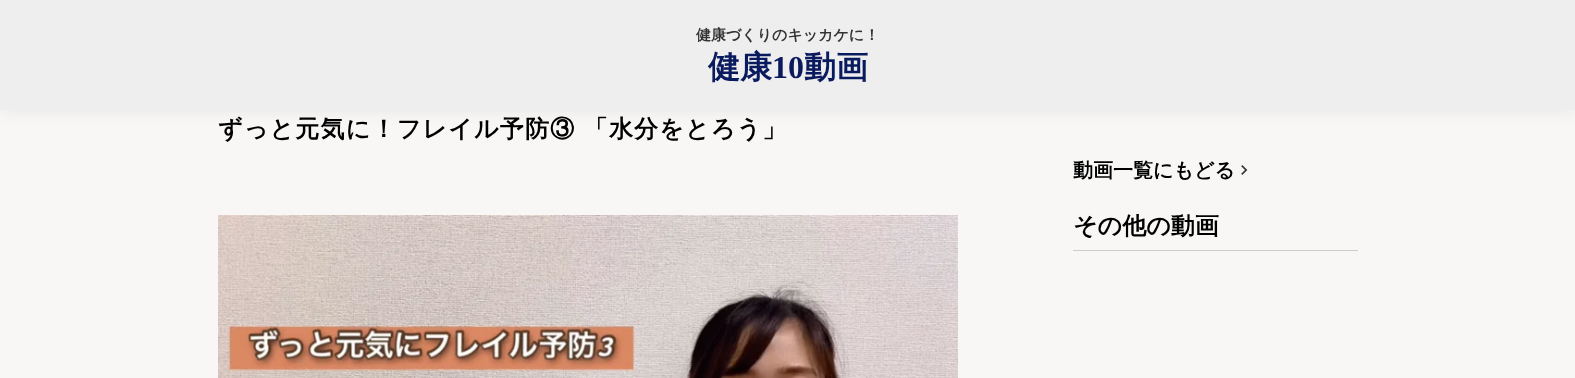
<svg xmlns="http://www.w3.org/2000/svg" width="1575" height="378">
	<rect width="100%" height="100%" fill="#F8F7F6" />
	<rect x="1" y="2" width="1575" height="110" fill="#000000" fill-opacity="0.06" filter="blur(7.5px)" />
	<rect x="0" y="0" width="1575" height="110" fill="#EEEEEE" />
	<text x="696" y="40" font-family="WenQuanYi Zen Hei" font-size="15" font-weight="700" fill="#333333">健康づくりのキッカケに！</text>
	<text x="708" y="78" font-family="WenQuanYi Zen Hei" font-size="32" font-weight="700" fill="#0A1A5E">健康</text>
	<text x="772" y="78" font-family="Liberation Serif" font-size="32" font-weight="700" fill="#0A1A5E">10</text>
	<text x="804" y="78" font-family="WenQuanYi Zen Hei" font-size="32" font-weight="700" fill="#0A1A5E">動画</text>
	<text x="218" y="137" font-family="WenQuanYi Zen Hei" font-size="24" font-weight="700" letter-spacing="1.2" fill="#000000">ずっと元気に！フレイル予防③ 「水分をとろう」</text>
	<image x="218" y="215" width="740" height="163" href="assets/img1.png" />
	<text x="1073" y="177" font-family="WenQuanYi Zen Hei" font-size="20" font-weight="700" fill="#000000">動画一覧にもどる</text>
	<image x="1241" y="165" width="7" height="10" href="assets/img2.png" />
	<rect x="1073" y="250" width="285" height="1" fill="#CCCCCC" />
	<text x="1073" y="234" font-family="WenQuanYi Zen Hei" font-size="24" font-weight="700" fill="#000000">その他の動画</text>
</svg>
